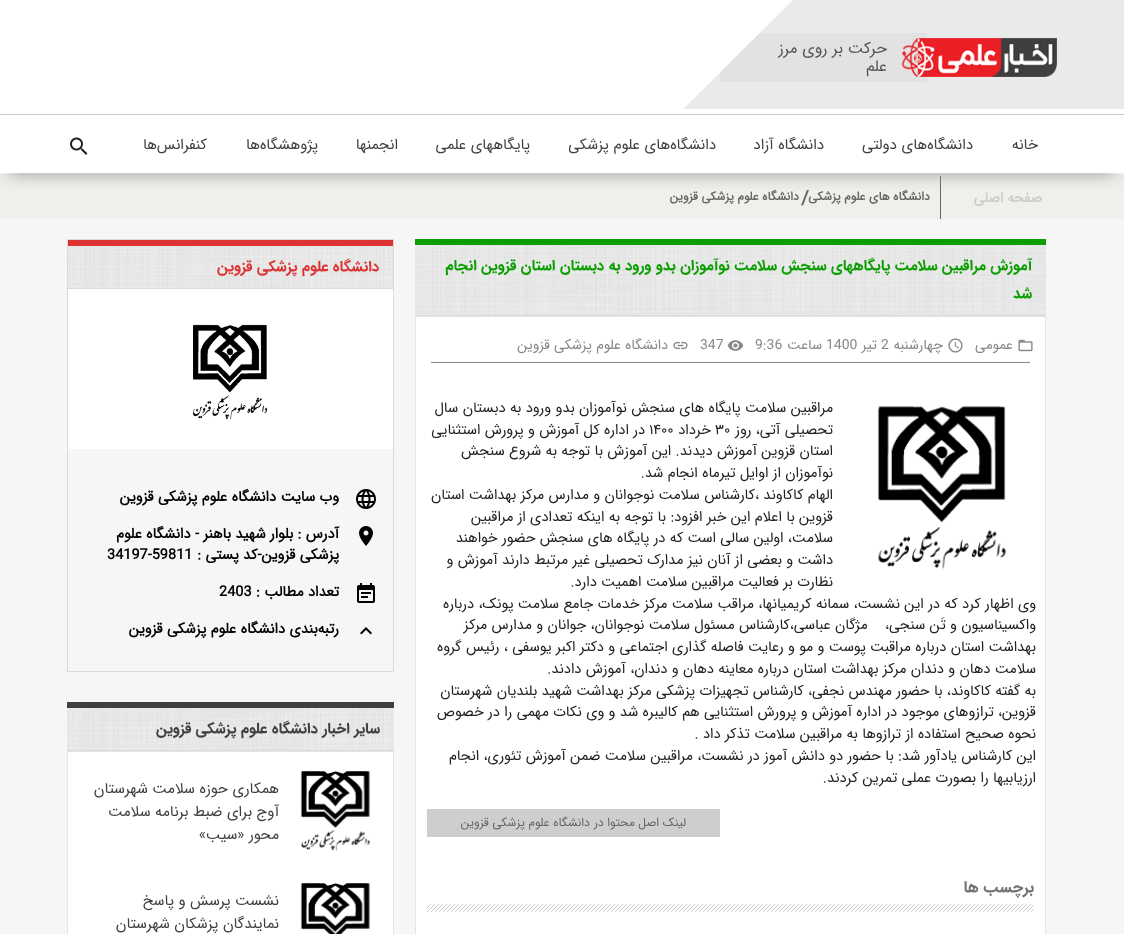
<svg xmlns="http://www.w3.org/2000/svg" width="1124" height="934">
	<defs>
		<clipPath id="clip1"><rect x="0" y="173" width="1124" height="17" /></clipPath>
	</defs>
	<rect width="100%" height="100%" fill="#F6F6F6" />
	<rect x="0" y="0" width="1124" height="174" fill="#FFFFFF" />
	<rect x="683" y="0" width="441" height="109" fill="#EAEAEA" />
	<rect x="720" y="33" width="207" height="49" fill="#E3E2E2" />
	<image x="902" y="38" width="155" height="39" href="assets/img1.png" />
	<g font-family="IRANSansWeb" font-size="16" direction="rtl" fill="#565656">
		<text x="887" y="53">حرکت بر روی مرز</text>
		<text x="887" y="71">علم</text>
	</g>
	<path d="M800-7L630 162V-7Z" fill="#FFFFFF" />
	<rect x="0" y="174" width="1124" height="45" fill="#EFEFEC" />
	<rect x="940" y="176" width="1" height="43" fill="#666666" />
	<g clip-path="url(#clip1)">
		<rect x="9" y="132" width="1106" height="41" fill="#929292" filter="blur(8.5px)" />
	</g>
	<rect x="0" y="114" width="1124" height="1" fill="#C9C9C9" />
	<g font-family="IRANSansWeb" font-size="15" direction="rtl" fill="#403E3F">
		<text x="1038" y="149">خانه</text>
		<text x="973" y="149">دانشگاه‌های دولتی</text>
		<text x="824" y="149">دانشگاه آزاد</text>
		<text x="716" y="149">دانشگاه‌های علوم پزشکی</text>
		<text x="530" y="149">پایگاههای علمی</text>
		<text x="398" y="149">انجمنها</text>
		<text x="318" y="149">پژوهشگاه‌ها</text>
		<text x="207" y="149">کنفرانس‌ها</text>
	</g>
	<image x="70" y="137" width="18" height="18" href="assets/img2.png" />
	<text x="1042" y="202" font-family="'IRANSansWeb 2'" font-size="14" font-weight="700" direction="rtl" fill="#CCCCCC">صفحه اصلی</text>
	<text x="930" y="200" font-family="'IRANSansWeb 2'" font-size="12" font-weight="700" direction="rtl" fill="#656565">دانشگاه های علوم پزشکی</text>
	<text x="801" y="204" font-family="'IRANSansWeb 2'" font-size="19" font-weight="700" fill="#656565">/</text>
	<text x="799" y="200" font-family="'IRANSansWeb 2'" font-size="12" font-weight="700" direction="rtl" fill="#656565">دانشگاه علوم پزشکی قزوین</text>
	<image x="415" y="245" width="631" height="70" href="assets/img3.png" />
	<rect x="415" y="239" width="631" height="6" fill="#0A9E01" />
	<rect x="415" y="315" width="631" height="1" fill="#DBDBDB" />
	<g font-family="IRANSansWeb" font-size="15" font-weight="700" direction="rtl" fill="#0A9E01">
		<text x="1032" y="270">آموزش مراقبین سلامت پایگاههای سنجش سلامت نوآموزان بدو ورود به دبستان استان قزوین انجام</text>
		<text x="1032" y="298">شد</text>
	</g>
	<rect x="415.5" y="316.5" width="630" height="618" fill="#FFFFFF" stroke="#E5E5E5" />
	<rect x="431" y="362" width="599" height="1" fill="#888888" />
	<image x="1018" y="339" width="15" height="13" href="assets/img4.png" />
	<text x="1013" y="349" font-family="IRANSansWeb" font-size="14" direction="rtl" fill="#888888">عمومی</text>
	<image x="948" y="338" width="15" height="15" href="assets/img5.png" />
	<text x="943" y="349" font-family="IRANSansWeb" font-size="14" direction="rtl" fill="#888888">چهارشنبه</text>
	<text x="881" y="349" font-family="IRANSansWeb" font-size="14" fill="#888888">2</text>
	<text x="877" y="349" font-family="IRANSansWeb" font-size="14" direction="rtl" fill="#888888">تیر</text>
	<text x="826" y="349" font-family="IRANSansWeb" font-size="14" fill="#888888">1400</text>
	<text x="822" y="349" font-family="IRANSansWeb" font-size="14" direction="rtl" fill="#888888">ساعت</text>
	<text x="755" y="349" font-family="IRANSansWeb" font-size="14" fill="#888888">9:36</text>
	<image x="727" y="340" width="17" height="11" href="assets/img6.png" />
	<text x="700" y="349" font-family="IRANSansWeb" font-size="14" fill="#888888">347</text>
	<image x="673" y="341" width="15" height="9" href="assets/img7.png" />
	<text x="668" y="349" font-family="IRANSansWeb" font-size="14" direction="rtl" fill="#888888">دانشگاه علوم پزشکی قزوین</text>
	<image x="878" y="406" width="128" height="163" href="assets/img8.png" />
	<g font-family="IRANSansWeb" font-size="14.5" direction="rtl" fill="#212121">
		<text x="833" y="412">مراقبین سلامت پایگاه های سنجش نوآموزان بدو ورود به دبستان سال</text>
		<text x="833" y="434">تحصیلی آتی، روز</text>
	</g>
	<text x="715" y="434" font-family="IRANSansWeb" font-size="14.5" fill="#212121">۳۰</text>
	<text x="711" y="434" font-family="IRANSansWeb" font-size="14.5" direction="rtl" fill="#212121">خرداد</text>
	<text x="649" y="434" font-family="IRANSansWeb" font-size="14.5" fill="#212121">۱۴۰۰</text>
	<g font-family="IRANSansWeb" font-size="14.5" direction="rtl" fill="#212121">
		<text x="645" y="434">در اداره کل آموزش و پرورش استثنایی</text>
		<text x="833" y="455">استان قزوین آموزش دیدند. این آموزش با توجه به شروع سنجش</text>
		<text x="833" y="477">نوآموزان از اوایل تیرماه انجام شد.</text>
		<text x="833" y="499">الهام کاکاوند ،کارشناس سلامت نوجوانان و مدارس مرکز بهداشت استان</text>
		<text x="833" y="521">قزوین با اعلام این خبر افزود: با توجه به اینکه تعدادی از مراقبین</text>
		<text x="833" y="542">سلامت، اولین سالی است که در پایگاه های سنجش حضور خواهند</text>
		<text x="833" y="564">داشت و بعضی از آنان نیز مدارک تحصیلی غیر مرتبط دارند آموزش و</text>
		<text x="833" y="586">نظارت بر فعالیت مراقبین سلامت اهمیت دارد.</text>
		<text x="1036" y="608">وی اظهار کرد که در این نشست، سمانه کریمیانها، مراقب سلامت مرکز خدمات جامع سلامت پونک، درباره</text>
		<text x="1036" y="629" xml:space="preserve">واکسیناسیون و تَن سنجی،    مژگان عباسی،کارشناس مسئول سلامت نوجوانان، جوانان و مدارس مرکز</text>
		<text x="1036" y="651">بهداشت استان درباره مراقبت پوست و مو و رعایت فاصله گذاری اجتماعی و دکتر اکبر یوسفی ، رئیس گروه</text>
		<text x="1036" y="673">سلامت دهان و دندان مرکز بهداشت استان درباره معاینه دهان و دندان، آموزش دادند.</text>
		<text x="1036" y="695">به گفته کاکاوند، با حضور مهندس نجفی، کارشناس تجهیزات پزشکی مرکز بهداشت شهید بلندیان شهرستان</text>
		<text x="1036" y="716">قزوین، ترازوهای موجود در اداره آموزش و پرورش استثنایی هم کالیبره شد و وی نکات مهمی را در خصوص</text>
		<text x="1036" y="738">نحوه صحیح استفاده از ترازوها به مراقبین سلامت تذکر داد .</text>
		<text x="1036" y="760">این کارشناس یادآور شد: با حضور دو دانش آموز در نشست، مراقبین سلامت ضمن آموزش تئوری، انجام</text>
		<text x="1036" y="782">ارزیابیها را بصورت عملی تمرین کردند.</text>
	</g>
	<rect x="427" y="809" width="293" height="28" fill="#CECECE" />
	<g font-family="IRANSansWeb" font-size="12" direction="rtl" fill="#656565">
		<text x="686" y="826">لینک اصل محتوا در</text>
		<text x="590" y="826">دانشگاه علوم پزشکی قزوین</text>
	</g>
	<text x="1034" y="892" font-family="IRANSansWeb" font-size="16" font-weight="700" direction="rtl" fill="#727272">برچسب ها</text>
	<image x="427" y="904" width="607" height="8" href="assets/img9.png" />
	<rect x="67.5" y="239.5" width="326" height="432" fill="none" stroke="#DBDBDB" />
	<image x="68" y="246" width="325" height="42" href="assets/img10.png" />
	<rect x="68" y="240" width="325" height="6" fill="#DD3333" />
	<rect x="68" y="288" width="325" height="1" fill="#DBDBDB" />
	<text x="379" y="271" font-family="IRANSansWeb" font-size="15" font-weight="700" direction="rtl" fill="#DD3333">دانشگاه علوم پزشکی قزوین</text>
	<rect x="68" y="289" width="325" height="160" fill="#FFFFFF" />
	<image x="193" y="324" width="74" height="96" href="assets/img11.png" />
	<image x="356" y="489" width="20" height="20" href="assets/img12.png" />
	<g font-family="'IRANSansWeb 2'" font-size="14.5" font-weight="700" direction="rtl" fill="#000000">
		<text x="339" y="501">وب سایت</text>
		<text x="276" y="501">دانشگاه علوم پزشکی قزوین</text>
	</g>
	<image x="359" y="526" width="14" height="20" href="assets/img13.png" />
	<g font-family="'IRANSansWeb 2'" font-size="14.5" font-weight="700" direction="rtl" fill="#000000">
		<text x="339" y="538">آدرس : بلوار شهید باهنر - دانشگاه علوم</text>
		<text x="339" y="559">پزشکی قزوین-کد پستی :</text>
	</g>
	<text x="107" y="559" font-family="'IRANSansWeb 2'" font-size="14.5" font-weight="700" fill="#000000">34197-59811</text>
	<image x="357" y="583" width="18" height="20" href="assets/img14.png" />
	<text x="339" y="596" font-family="'IRANSansWeb 2'" font-size="14.5" font-weight="700" direction="rtl" fill="#000000">تعداد مطالب :</text>
	<text x="219" y="596" font-family="'IRANSansWeb 2'" font-size="14.5" font-weight="700" fill="#000000">2403</text>
	<image x="360" y="627" width="12" height="8" href="assets/img15.png" />
	<g font-family="'IRANSansWeb 2'" font-size="14.5" font-weight="700" direction="rtl" fill="#000000">
		<text x="339" y="633">رتبه‌بندی</text>
		<text x="285" y="633">دانشگاه علوم پزشکی قزوین</text>
	</g>
	<image x="67" y="708" width="327" height="42" href="assets/img16.png" />
	<rect x="67" y="702" width="327" height="6" fill="#403E3F" />
	<rect x="67" y="750" width="327" height="1" fill="#DBDBDB" />
	<text x="380" y="733" font-family="IRANSansWeb" font-size="15" font-weight="700" direction="rtl" fill="#403E3F">سایر اخبار دانشگاه علوم پزشکی قزوین</text>
	<rect x="67.5" y="751.5" width="326" height="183" fill="#FFFFFF" stroke="#E5E5E5" />
	<image x="300" y="771" width="70" height="80" href="assets/img17.png" />
	<g font-family="IRANSansWeb" font-size="15" direction="rtl" fill="#403E3F">
		<text x="279" y="793">همکاری حوزه سلامت شهرستان</text>
		<text x="279" y="816">آوج برای ضبط برنامه سلامت</text>
		<text x="279" y="839">محور «سیب»</text>
	</g>
	<image x="300" y="883" width="70" height="51" href="assets/img18.png" />
	<g font-family="IRANSansWeb" font-size="15" direction="rtl" fill="#403E3F">
		<text x="279" y="905">نشست پرسش و پاسخ</text>
		<text x="279" y="928">نمایندگان پزشکان شهرستان</text>
	</g>
</svg>
